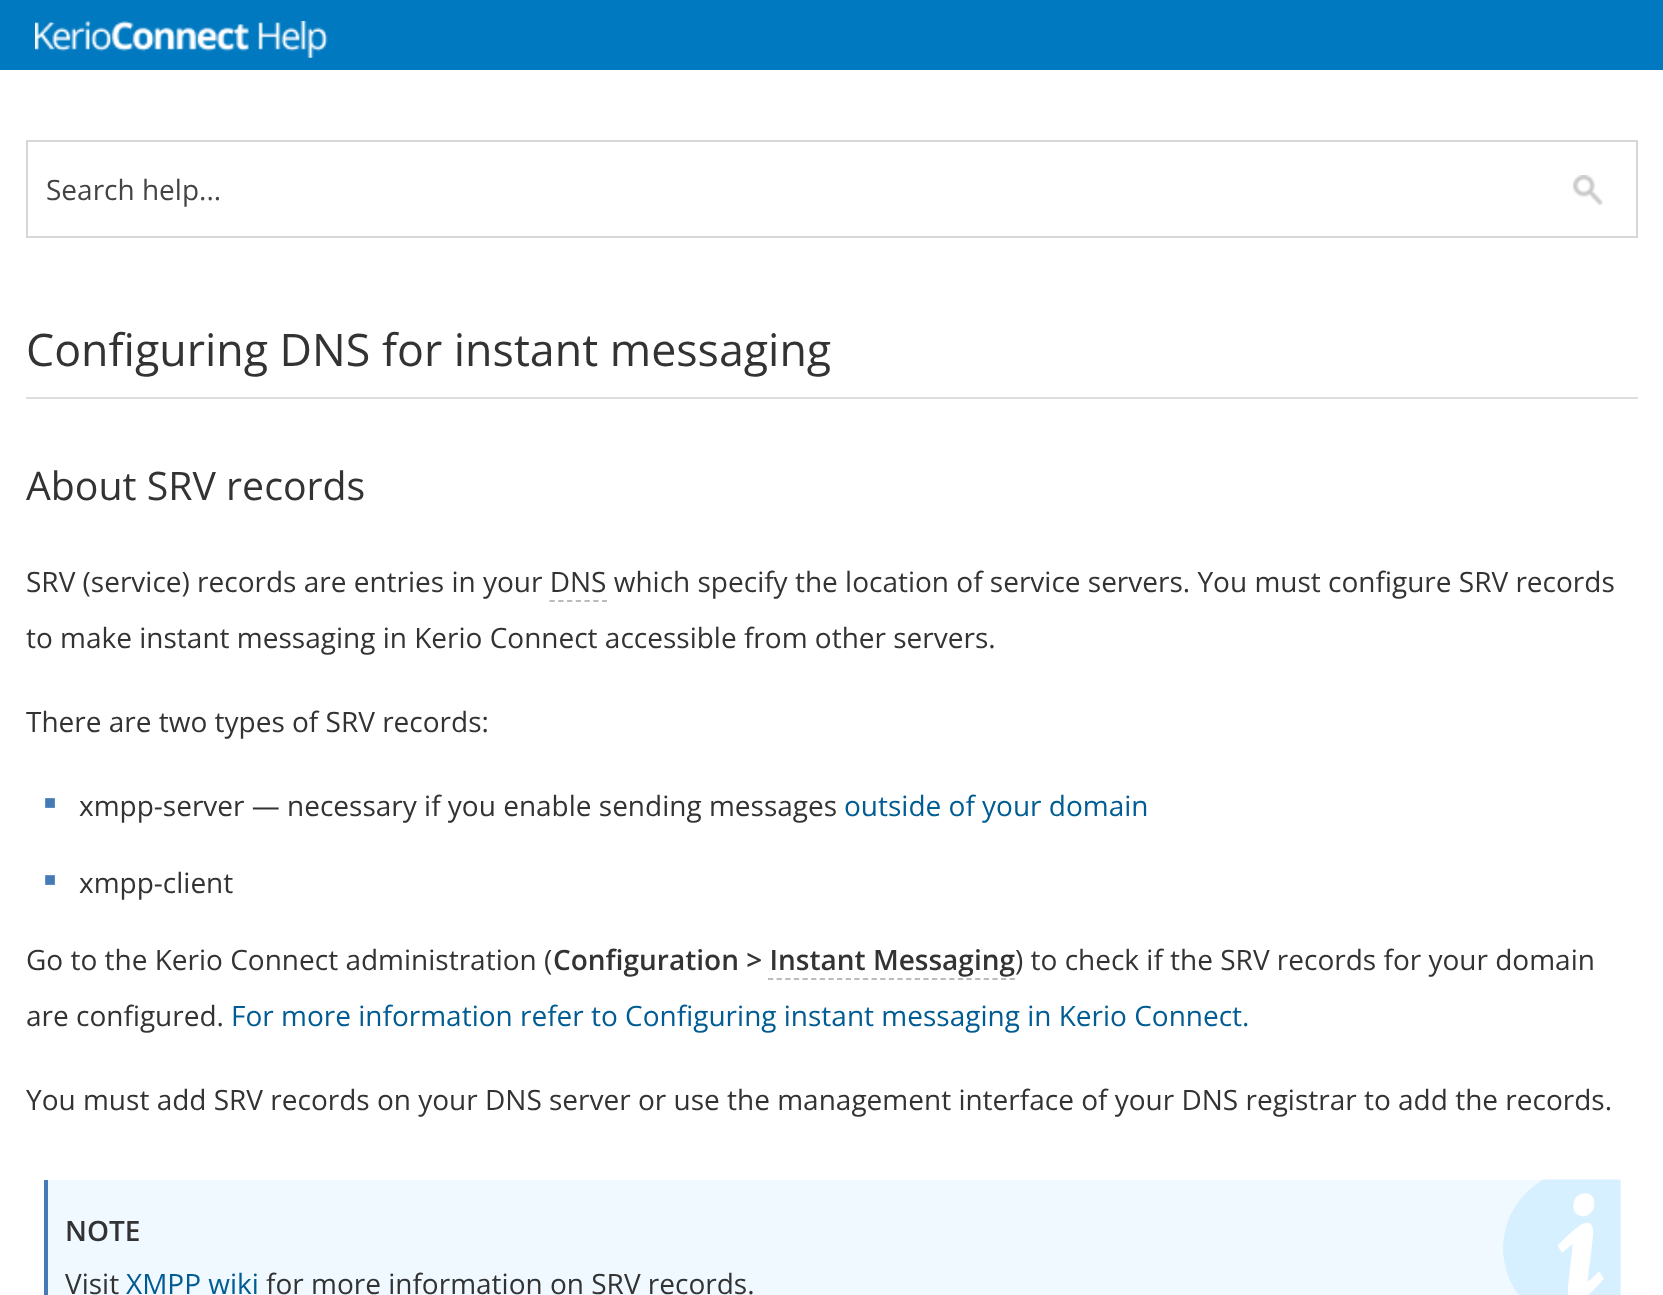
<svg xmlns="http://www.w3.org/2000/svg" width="1663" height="1295">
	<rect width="100%" height="100%" fill="#FFFFFF" />
	<rect x="0" y="0" width="1663" height="70" fill="#0079C1" />
	<image x="35" y="21" width="293" height="37" href="assets/img1.png" />
	<rect x="27" y="141" width="1610" height="96" fill="none" stroke="#D7D7D7" stroke-width="2" />
	<text x="46" y="200" font-family="Open Sans" font-size="28" fill="#444444">Search help...</text>
	<image x="1573" y="175" width="30" height="30" href="assets/img2.png" />
	<rect x="26" y="397" width="1612" height="2" fill="#DDDDDD" />
	<text x="26" y="366" font-family="Open Sans" font-size="44.75" fill="#333333">Configuring DNS for instant messaging</text>
	<text x="26" y="500" font-family="Open Sans" font-size="39.25" fill="#333333">About SRV records</text>
	<text x="26" y="592" font-family="Open Sans" font-size="28" fill="#333333">SRV (service) records are entries in your DNS which specify the location of service servers. You must configure SRV records</text>
	<path d="M549.5 601H607" fill="none" stroke="#BBBBBB" stroke-width="1.8" stroke-dasharray="5.25 3.5" />
	<g font-family="Open Sans" font-size="28" fill="#333333">
		<text x="26" y="648">to make instant messaging in Kerio Connect accessible from other servers.</text>
		<text x="26" y="732">There are two types of SRV records:</text>
	</g>
	<text x="44" y="809" font-family="Liberation Sans" font-size="20" fill="#447AB6">■</text>
	<text x="79" y="816" font-family="Open Sans" font-size="28" fill="#333333">xmpp-server — necessary if you enable sending messages</text>
	<text x="844" y="816" font-family="Open Sans" font-size="28" fill="#005C92">outside of your domain</text>
	<text x="44" y="886" font-family="Liberation Sans" font-size="20" fill="#447AB6">■</text>
	<g font-family="Open Sans" font-size="28" fill="#333333">
		<text x="79" y="893">xmpp-client</text>
		<text x="26" y="970">Go to the Kerio Connect administration (</text>
	</g>
	<text x="553" y="970" font-family="Open Sans" font-size="28" font-weight="600" fill="#333333">Configuration &gt; Instant Messaging</text>
	<path d="M768 979H1015" fill="none" stroke="#BBBBBB" stroke-width="1.8" stroke-dasharray="5.25 3.38" />
	<g font-family="Open Sans" font-size="28" fill="#333333">
		<text x="1015" y="970">) to check if the SRV records for your domain</text>
		<text x="26" y="1026">are configured.</text>
	</g>
	<text x="231" y="1026" font-family="Open Sans" font-size="28" fill="#005C92">For more information refer to Configuring instant messaging in Kerio Connect.</text>
	<text x="26" y="1110" font-family="Open Sans" font-size="28" fill="#333333">You must add SRV records on your DNS server or use the management interface of your DNS registrar to add the records.</text>
	<rect x="48" y="1180" width="1573" height="115" fill="#F0F9FF" />
	<image x="1503" y="1179" width="118" height="116" href="assets/img3.png" />
	<rect x="44" y="1180" width="4" height="115" fill="#447AB6" />
	<text x="65" y="1241" font-family="Open Sans" font-size="28" font-weight="600" fill="#333333">NOTE</text>
	<text x="65" y="1294" font-family="Open Sans" font-size="28" fill="#333333">Visit</text>
	<text x="126" y="1294" font-family="Open Sans" font-size="28" fill="#005C92">XMPP wiki</text>
	<text x="266" y="1294" font-family="Open Sans" font-size="28" fill="#333333">for more information on SRV records.</text>
</svg>
